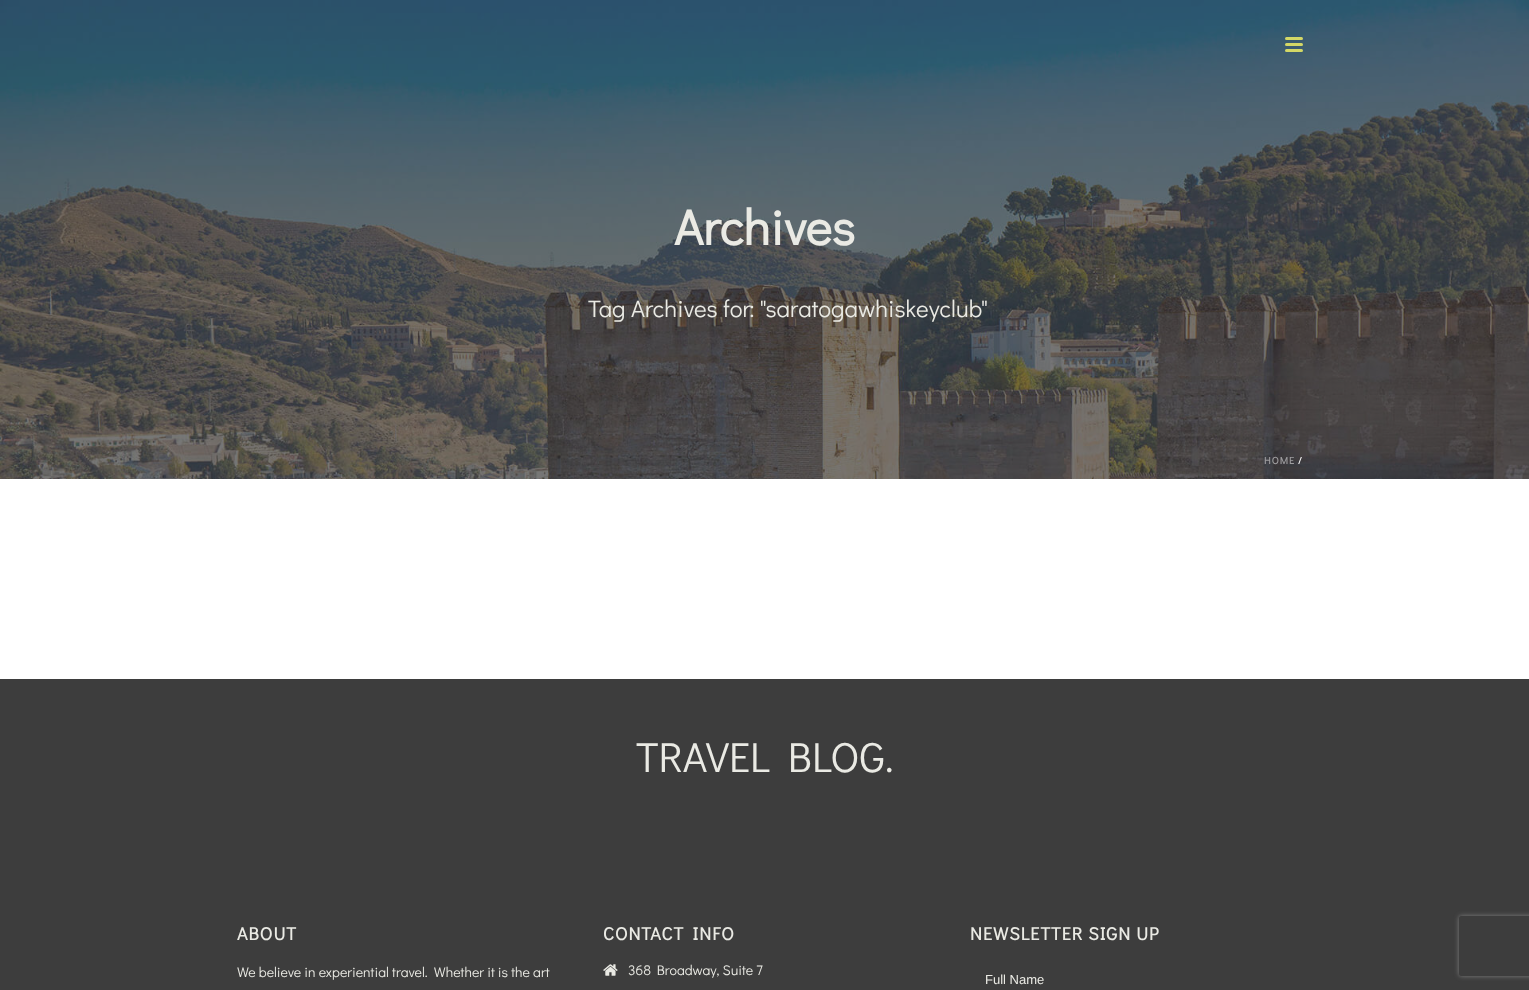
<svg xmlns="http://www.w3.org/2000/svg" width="1529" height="990">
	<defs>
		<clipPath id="clip1"><path d="M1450 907H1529V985H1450ZM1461 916H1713C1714 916 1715 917 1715 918V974C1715 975 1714 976 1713 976H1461C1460 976 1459 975 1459 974V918C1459 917 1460 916 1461 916Z" clip-rule="evenodd" /></clipPath>
	</defs>
	<rect width="100%" height="100%" fill="#FFFFFF" />
	<image x="0" y="0" width="1529" height="479" href="assets/img1.png" />
	<rect x="1285" y="37" width="18" height="3" rx="1.5" fill="#D4D866" />
	<rect x="1285" y="43" width="18" height="3" rx="1.5" fill="#D4D866" />
	<rect x="1285" y="49" width="18" height="3" rx="1.5" fill="#D4D866" />
	<text x="674" y="245" font-family="Didact Gothic" font-size="50" font-weight="700" fill="#EAEAE4">Archives</text>
	<text x="588" y="317" font-family="Didact Gothic" font-size="24" fill="#EAEAE4">Tag Archives for: "saratogawhiskeyclub"</text>
	<text x="1264" y="464" font-family="Didact Gothic" font-size="10" font-weight="700" letter-spacing="1" fill="#9E9D9F">HOME</text>
	<text x="1298" y="464" font-family="Didact Gothic" font-size="10" font-weight="700" letter-spacing="1" fill="#FFFFFF">/</text>
	<rect x="0" y="679" width="1529" height="311" fill="#3D3D3D" />
	<text x="636" y="772" font-family="Didact Gothic" font-size="42" fill="#EAEAE4">TRAVEL BLOG.</text>
	<text x="237" y="940" font-family="Didact Gothic" font-size="18" font-weight="700" letter-spacing="1" fill="#EAEAE4">ABOUT</text>
	<text x="237" y="977" font-family="Didact Gothic" font-size="14" fill="#EAEAE4" xml:space="preserve">We believe in experiential travel.  Whether it is the art</text>
	<text x="603" y="940" font-family="Didact Gothic" font-size="18" font-weight="700" letter-spacing="1" fill="#EAEAE4">CONTACT INFO</text>
	<image x="603" y="964" width="15" height="12" href="assets/img2.png" />
	<text x="628" y="975" font-family="Didact Gothic" font-size="14" fill="#EAEAE4">368 Broadway, Suite 7</text>
	<text x="970" y="940" font-family="Didact Gothic" font-size="18" font-weight="700" letter-spacing="1" fill="#EAEAE4">NEWSLETTER SIGN UP</text>
	<text x="985" y="984" font-family="Liberation Sans" font-size="13" fill="#EAEAE4">Full Name</text>
	<g clip-path="url(#clip1)">
		<rect x="1459" y="916" width="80" height="60" rx="2" fill="#808080" filter="blur(2.5px)" />
	</g>
</svg>
